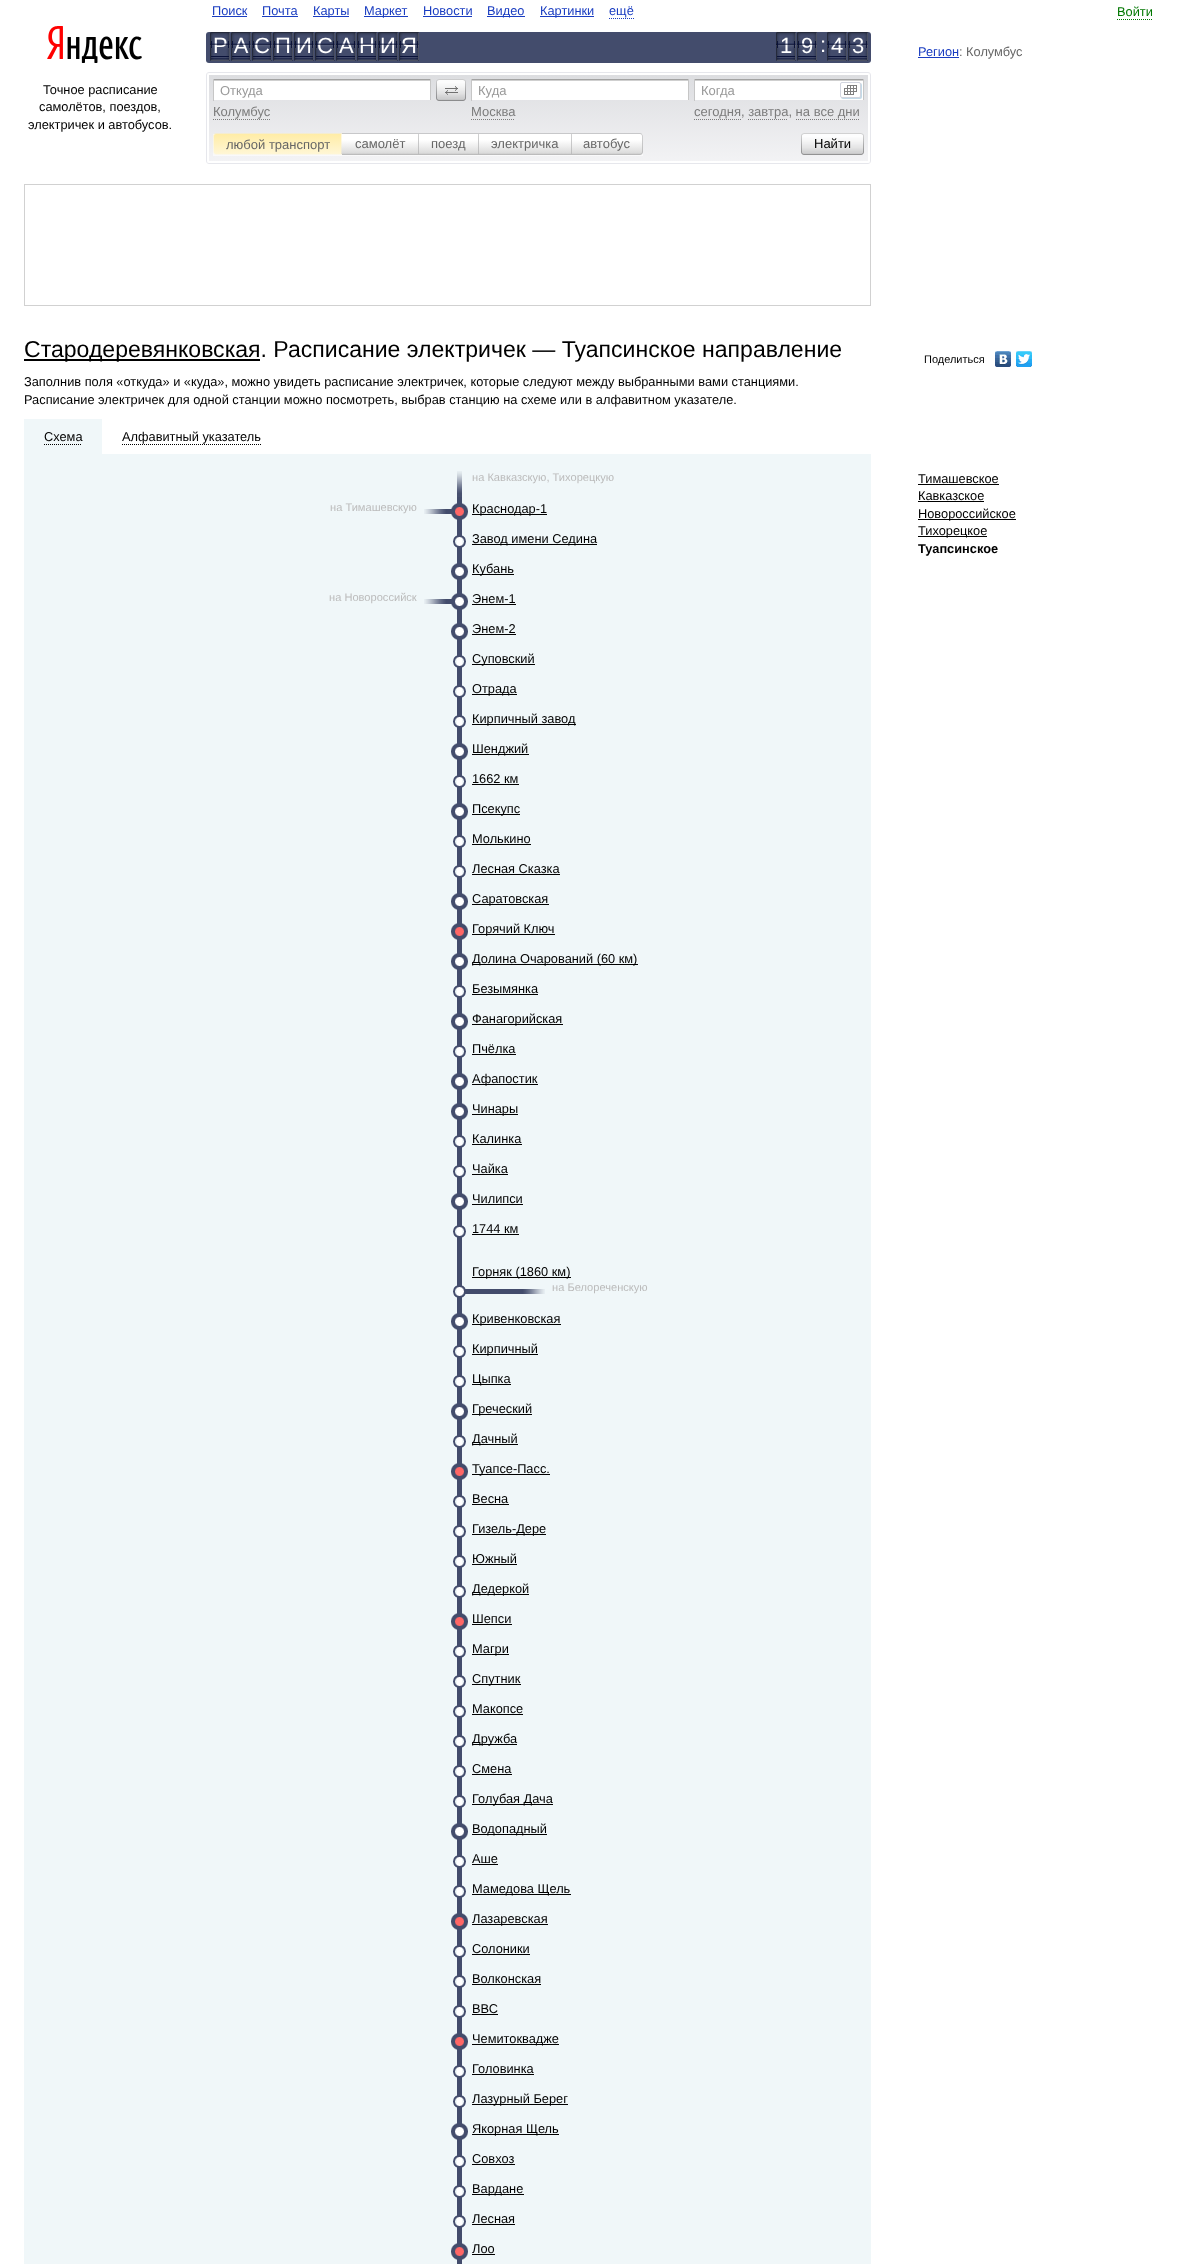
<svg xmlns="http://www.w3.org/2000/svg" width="1177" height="2264">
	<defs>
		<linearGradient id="g1" gradientUnits="userSpaceOnUse" x1="539" y1="73" x2="539" y2="163"><stop offset="0" stop-color="#DCDDE0" /><stop offset="1" stop-color="#F3F3F5" /></linearGradient>
		<linearGradient id="g2" gradientUnits="userSpaceOnUse" x1="380" y1="133" x2="380" y2="155"><stop offset="0" stop-color="#000000" stop-opacity="0.15" /><stop offset="1" stop-color="#000000" stop-opacity="0.25" /></linearGradient>
		<linearGradient id="g3" gradientUnits="userSpaceOnUse" x1="380" y1="134" x2="380" y2="154"><stop offset="0.3" stop-color="#FFFFFF" /><stop offset="0.92" stop-color="#DDDDDD" /><stop offset="1" stop-color="#CECECE" /></linearGradient>
		<linearGradient id="g4" gradientUnits="userSpaceOnUse" x1="278" y1="133" x2="278" y2="155"><stop offset="0" stop-color="#FFECA6" stop-opacity="0.4" /><stop offset="1" stop-color="#FFF6D5" stop-opacity="0.4" /></linearGradient>
		<linearGradient id="g5" gradientUnits="userSpaceOnUse" x1="278" y1="134" x2="278" y2="154"><stop offset="0" stop-color="#FFECA6" /><stop offset="1" stop-color="#FFF6D5" /></linearGradient>
		<linearGradient id="g6" gradientUnits="userSpaceOnUse" x1="448" y1="133" x2="448" y2="155"><stop offset="0" stop-color="#000000" stop-opacity="0.15" /><stop offset="1" stop-color="#000000" stop-opacity="0.25" /></linearGradient>
		<linearGradient id="g7" gradientUnits="userSpaceOnUse" x1="449" y1="134" x2="449" y2="154"><stop offset="0.3" stop-color="#FFFFFF" /><stop offset="0.92" stop-color="#DDDDDD" /><stop offset="1" stop-color="#CECECE" /></linearGradient>
		<linearGradient id="g8" gradientUnits="userSpaceOnUse" x1="525" y1="133" x2="525" y2="155"><stop offset="0" stop-color="#000000" stop-opacity="0.15" /><stop offset="1" stop-color="#000000" stop-opacity="0.25" /></linearGradient>
		<linearGradient id="g9" gradientUnits="userSpaceOnUse" x1="525" y1="134" x2="525" y2="154"><stop offset="0.3" stop-color="#FFFFFF" /><stop offset="0.92" stop-color="#DDDDDD" /><stop offset="1" stop-color="#CECECE" /></linearGradient>
		<linearGradient id="g10" gradientUnits="userSpaceOnUse" x1="607" y1="133" x2="607" y2="155"><stop offset="0" stop-color="#000000" stop-opacity="0.15" /><stop offset="1" stop-color="#000000" stop-opacity="0.25" /></linearGradient>
		<linearGradient id="g11" gradientUnits="userSpaceOnUse" x1="607" y1="134" x2="607" y2="154"><stop offset="0.3" stop-color="#FFFFFF" /><stop offset="0.92" stop-color="#DDDDDD" /><stop offset="1" stop-color="#CECECE" /></linearGradient>
	</defs>
	<rect width="100%" height="100%" fill="#FFFFFF" />
	<image x="47" y="26" width="95" height="37" href="assets/img1.png" />
	<text x="212" y="15" font-family="Liberation Sans" font-size="12.8" fill="#1A3DC1">Поиск</text>
	<rect x="212" y="16" width="35" height="1" fill="#1A3DC1" />
	<text x="262" y="15" font-family="Liberation Sans" font-size="12.8" fill="#1A3DC1">Почта</text>
	<rect x="262" y="16" width="36" height="1" fill="#1A3DC1" />
	<rect x="313" y="16" width="36" height="1" fill="#1A3DC1" />
	<text x="313" y="15" font-family="Liberation Sans" font-size="12.8" fill="#1A3DC1">Карты</text>
	<rect x="364" y="16" width="44" height="1" fill="#1A3DC1" />
	<g font-family="Liberation Sans" font-size="12.8" fill="#1A3DC1">
		<text x="364" y="15">Маркет</text>
		<text x="423" y="15">Новости</text>
	</g>
	<rect x="423" y="16" width="49" height="1" fill="#1A3DC1" />
	<rect x="487" y="16" width="38" height="1" fill="#1A3DC1" />
	<text x="487" y="15" font-family="Liberation Sans" font-size="12.8" fill="#1A3DC1">Видео</text>
	<rect x="540" y="16" width="54" height="1" fill="#1A3DC1" />
	<g font-family="Liberation Sans" font-size="12.8" fill="#1A3DC1">
		<text x="540" y="15">Картинки</text>
		<text x="609" y="15">ещё</text>
	</g>
	<path d="M609 18.5H634" fill="none" stroke="#1A3DC1" stroke-dasharray="1 1" />
	<rect x="206" y="32" width="665" height="31" rx="3" fill="#434C6C" />
	<text x="213" y="53" font-family="Liberation Sans" font-size="22" fill="#FFFFFF">Р А</text>
	<image x="231" y="32" width="20" height="29" href="assets/img2.png" />
	<image x="210" y="32" width="20" height="29" href="assets/img3.png" />
	<text x="254" y="53" font-family="Liberation Sans" font-size="22" fill="#FFFFFF">С</text>
	<image x="252" y="32" width="20" height="29" href="assets/img4.png" />
	<text x="275" y="53" font-family="Liberation Sans" font-size="22" fill="#FFFFFF">П</text>
	<image x="273" y="32" width="20" height="29" href="assets/img5.png" />
	<text x="296" y="53" font-family="Liberation Sans" font-size="22" fill="#FFFFFF">И</text>
	<image x="294" y="32" width="20" height="29" href="assets/img6.png" />
	<text x="317" y="53" font-family="Liberation Sans" font-size="22" fill="#FFFFFF">С</text>
	<image x="315" y="32" width="20" height="29" href="assets/img4.png" />
	<text x="339" y="53" font-family="Liberation Sans" font-size="22" fill="#FFFFFF">А</text>
	<image x="336" y="32" width="20" height="29" href="assets/img2.png" />
	<text x="359" y="53" font-family="Liberation Sans" font-size="22" fill="#FFFFFF">Н</text>
	<image x="357" y="32" width="20" height="29" href="assets/img7.png" />
	<text x="380" y="53" font-family="Liberation Sans" font-size="22" fill="#FFFFFF">И</text>
	<image x="378" y="32" width="20" height="29" href="assets/img6.png" />
	<text x="401" y="53" font-family="Liberation Sans" font-size="22" fill="#FFFFFF">Я</text>
	<image x="399" y="32" width="20" height="29" href="assets/img8.png" />
	<text x="780" y="53" font-family="Liberation Sans" font-size="22" fill="#FFFFFF">1</text>
	<image x="776" y="32" width="20" height="29" href="assets/img9.png" />
	<text x="801" y="53" font-family="Liberation Sans" font-size="22" fill="#FFFFFF">9</text>
	<image x="797" y="32" width="20" height="29" href="assets/img10.png" />
	<g font-family="Liberation Sans" font-size="22" fill="#FFFFFF">
		<text x="820" y="52">:</text>
		<text x="831" y="53">4</text>
	</g>
	<image x="827" y="32" width="20" height="29" href="assets/img11.png" />
	<text x="852" y="53" font-family="Liberation Sans" font-size="22" fill="#FFFFFF">3</text>
	<image x="848" y="32" width="20" height="29" href="assets/img12.png" />
	<text x="1117" y="16" font-family="Liberation Sans" font-size="12.8" fill="#007700">Войти</text>
	<path d="M1117 19.5H1152" fill="none" stroke="#007700" stroke-dasharray="1 1" />
	<text x="918" y="56" font-family="Liberation Sans" font-size="12.8" fill="#1A3DC1">Регион</text>
	<rect x="918" y="57" width="41" height="1" fill="#1A3DC1" />
	<text x="959" y="56" font-family="Liberation Sans" font-size="12.8" fill="#666666">: Колумбус</text>
	<g font-family="Liberation Sans" font-size="12.8" fill="#000000">
		<text x="43" y="94">Точное расписание</text>
		<text x="39" y="111">самолётов, поездов,</text>
		<text x="28" y="129">электричек и автобусов.</text>
	</g>
	<rect x="207" y="73" width="663" height="90" rx="2" fill="url(#g1)" />
	<rect x="206.5" y="72.5" width="664" height="91" rx="2.5" fill="none" stroke="#E6E7EC" />
	<rect x="208" y="74" width="661" height="88" rx="1" fill="none" stroke="#FFFFFF" stroke-width="2" />
	<rect x="214" y="81" width="216" height="19" fill="#FFFFFF" />
	<rect x="214" y="80" width="216" height="1" fill="#CFCFCF" />
	<rect x="213" y="79" width="218" height="1" fill="#A3A3A3" />
	<rect x="430" y="79" width="1" height="22" fill="#C6C6C6" />
	<rect x="430" y="100" width="1" height="1" fill="#E5E5E5" />
	<rect x="213" y="79" width="1" height="22" fill="#C6C6C6" />
	<text x="220" y="95" font-family="Liberation Sans" font-size="13" fill="#999999">Откуда</text>
	<text x="213" y="116" font-family="Liberation Sans" font-size="13" fill="#7C7C7C">Колумбус</text>
	<path d="M213 119.5H270" fill="none" stroke="#7C7C7C" stroke-dasharray="1 1" />
	<image x="463" y="79" width="3" height="22" href="assets/img13.png" />
	<image x="436" y="79" width="3" height="22" href="assets/img14.png" />
	<image x="439" y="79" width="24" height="22" href="assets/img15.png" />
	<image x="445" y="86" width="13" height="9" href="assets/img16.png" />
	<rect x="472" y="81" width="216" height="19" fill="#FFFFFF" />
	<rect x="472" y="80" width="216" height="1" fill="#CFCFCF" />
	<rect x="471" y="79" width="218" height="1" fill="#A3A3A3" />
	<rect x="688" y="79" width="1" height="22" fill="#C6C6C6" />
	<rect x="688" y="100" width="1" height="1" fill="#E5E5E5" />
	<rect x="471" y="79" width="1" height="22" fill="#C6C6C6" />
	<text x="478" y="95" font-family="Liberation Sans" font-size="13" fill="#999999">Куда</text>
	<text x="471" y="116" font-family="Liberation Sans" font-size="13" fill="#7C7C7C">Москва</text>
	<path d="M471 119.5H515" fill="none" stroke="#7C7C7C" stroke-dasharray="1 1" />
	<rect x="695" y="81" width="168" height="19" fill="#FFFFFF" />
	<rect x="695" y="80" width="168" height="1" fill="#CFCFCF" />
	<rect x="694" y="79" width="170" height="1" fill="#A3A3A3" />
	<rect x="863" y="79" width="1" height="22" fill="#C6C6C6" />
	<rect x="863" y="100" width="1" height="1" fill="#E5E5E5" />
	<rect x="694" y="79" width="1" height="22" fill="#C6C6C6" />
	<text x="701" y="95" font-family="Liberation Sans" font-size="13" fill="#999999">Когда</text>
	<rect x="841" y="83" width="21" height="16" rx="2" fill="#C3DBE8" filter="blur(0.5px)" />
	<rect x="840.5" y="82.5" width="20" height="15" rx="1.5" fill="#FFFFFF" stroke="#D2D5DF" />
	<image x="844" y="85" width="13" height="10" href="assets/img17.png" />
	<text x="694" y="116" font-family="Liberation Sans" font-size="13" fill="#7C7C7C">сегодня, завтра, на все дни</text>
	<path d="M694 119.5H741" fill="none" stroke="#7C7C7C" stroke-dasharray="1 1" />
	<path d="M748 119.5H788" fill="none" stroke="#7C7C7C" stroke-dasharray="1 1" />
	<path d="M796 119.5H860" fill="none" stroke="#7C7C7C" stroke-dasharray="1 1" />
	<rect x="213" y="134" width="430" height="22" fill="#FFFFFF" fill-opacity="0.6" filter="blur(0.5px)" />
	<rect x="342" y="133" width="76" height="22" fill="url(#g2)" />
	<rect x="341" y="134" width="77" height="20" fill="url(#g3)" />
	<path d="M216 133H342V155H216C214.5 155 213 153.5 213 152V136C213 134.5 214.5 133 216 133Z" fill="url(#g4)" />
	<path d="M216 134H341V154H216C215 154 214 153 214 152V136C214 135 215 134 216 134Z" fill="url(#g5)" />
	<g font-family="Liberation Sans" font-size="13" fill="#666666">
		<text x="226" y="149">любой транспорт</text>
		<text x="355" y="148">самолёт</text>
	</g>
	<rect x="418" y="133" width="60" height="22" fill="url(#g6)" />
	<rect x="419" y="134" width="59" height="20" fill="url(#g7)" />
	<text x="431" y="148" font-family="Liberation Sans" font-size="13" fill="#666666">поезд</text>
	<rect x="478" y="133" width="93" height="22" fill="url(#g8)" />
	<rect x="479" y="134" width="92" height="20" fill="url(#g9)" />
	<text x="491" y="148" font-family="Liberation Sans" font-size="13" fill="#666666">электричка</text>
	<path d="M571 133H640C641.5 133 643 134.5 643 136V152C643 153.5 641.5 155 640 155H571Z" fill="url(#g10)" />
	<path d="M572 134H640C641 134 642 135 642 136V152C642 153 641 154 640 154H572Z" fill="url(#g11)" />
	<text x="583" y="148" font-family="Liberation Sans" font-size="13" fill="#666666">автобус</text>
	<image x="861" y="133" width="3" height="22" href="assets/img18.png" />
	<image x="801" y="133" width="3" height="22" href="assets/img19.png" />
	<image x="804" y="133" width="57" height="22" href="assets/img20.png" />
	<text x="814" y="148" font-family="Liberation Sans" font-size="13" fill="#000000">Найти</text>
	<rect x="24.5" y="184.5" width="846" height="121" fill="none" stroke="#D1D1D1" />
	<rect x="24" y="359" width="236" height="2" fill="#000000" />
	<text x="24" y="357" font-family="Liberation Sans" font-size="23.05" fill="#000000">Стародеревянковская. Расписание электричек — Туапсинское направление</text>
	<g font-family="Liberation Sans" font-size="12.8" fill="#000000">
		<text x="24" y="386">Заполнив поля «откуда» и «куда», можно увидеть расписание электричек, которые следуют между выбранными вами станциями.</text>
		<text x="24" y="404">Расписание электричек для одной станции можно посмотреть, выбрав станцию на схеме или в алфавитном указателе.</text>
	</g>
	<text x="924" y="363" font-family="Liberation Sans" font-size="11" fill="#000000">Поделиться</text>
	<image x="995" y="351" width="16" height="16" href="assets/img21.png" />
	<image x="1016" y="351" width="16" height="16" href="assets/img22.png" />
	<rect x="24" y="419" width="78" height="35" fill="#F0F7F9" />
	<text x="44" y="441" font-family="Liberation Sans" font-size="12.8" fill="#000000">Схема</text>
	<path d="M44 444.5H82" fill="none" stroke="#000000" stroke-dasharray="1 1" />
	<text x="122" y="441" font-family="Liberation Sans" font-size="12.8" fill="#000000">Алфавитный указатель</text>
	<path d="M122 444.5H261" fill="none" stroke="#000000" stroke-dasharray="1 1" />
	<rect x="24" y="454" width="847" height="1810" fill="#F0F7F9" />
	<image x="457" y="471" width="5" height="26" href="assets/img23.png" />
	<g font-family="Liberation Sans" font-size="11.1" fill="#BBBBBB">
		<text x="472" y="481">на Кавказскую, Тихорецкую</text>
		<text x="330" y="511">на Тимашевскую</text>
	</g>
	<image x="424" y="509" width="23" height="5" href="assets/img24.png" />
	<image x="447" y="497" width="21" height="30" href="assets/img25.png" />
	<rect x="472" y="514" width="75" height="1" fill="#000000" />
	<text x="472" y="513" font-family="Liberation Sans" font-size="12.8" fill="#000000">Краснодар-1</text>
	<image x="453" y="527" width="13" height="30" href="assets/img26.png" />
	<rect x="472" y="544" width="125" height="1" fill="#000000" />
	<text x="472" y="543" font-family="Liberation Sans" font-size="12.8" fill="#000000">Завод имени Седина</text>
	<image x="451" y="557" width="17" height="30" href="assets/img27.png" />
	<rect x="472" y="574" width="42" height="1" fill="#000000" />
	<text x="472" y="573" font-family="Liberation Sans" font-size="12.8" fill="#000000">Кубань</text>
	<text x="329" y="601" font-family="Liberation Sans" font-size="11.1" fill="#BBBBBB">на Новороссийск</text>
	<image x="424" y="599" width="23" height="5" href="assets/img24.png" />
	<image x="447" y="587" width="21" height="30" href="assets/img28.png" />
	<text x="472" y="603" font-family="Liberation Sans" font-size="12.8" fill="#000000">Энем-1</text>
	<rect x="472" y="604" width="44" height="1" fill="#000000" />
	<image x="451" y="617" width="17" height="30" href="assets/img27.png" />
	<text x="472" y="633" font-family="Liberation Sans" font-size="12.8" fill="#000000">Энем-2</text>
	<rect x="472" y="634" width="44" height="1" fill="#000000" />
	<image x="453" y="647" width="13" height="30" href="assets/img26.png" />
	<rect x="472" y="664" width="63" height="1" fill="#000000" />
	<text x="472" y="663" font-family="Liberation Sans" font-size="12.8" fill="#000000">Суповский</text>
	<image x="453" y="677" width="13" height="30" href="assets/img26.png" />
	<rect x="472" y="694" width="45" height="1" fill="#000000" />
	<text x="472" y="693" font-family="Liberation Sans" font-size="12.8" fill="#000000">Отрада</text>
	<image x="453" y="707" width="13" height="30" href="assets/img26.png" />
	<rect x="472" y="724" width="104" height="1" fill="#000000" />
	<text x="472" y="723" font-family="Liberation Sans" font-size="12.8" fill="#000000">Кирпичный завод</text>
	<image x="451" y="737" width="17" height="30" href="assets/img27.png" />
	<rect x="472" y="754" width="57" height="1" fill="#000000" />
	<text x="472" y="753" font-family="Liberation Sans" font-size="12.8" fill="#000000">Шенджий</text>
	<image x="453" y="767" width="13" height="30" href="assets/img26.png" />
	<text x="472" y="783" font-family="Liberation Sans" font-size="12.8" fill="#000000">1662 км</text>
	<rect x="472" y="784" width="47" height="1" fill="#000000" />
	<image x="451" y="797" width="17" height="30" href="assets/img27.png" />
	<rect x="472" y="814" width="48" height="1" fill="#000000" />
	<text x="472" y="813" font-family="Liberation Sans" font-size="12.8" fill="#000000">Псекупс</text>
	<image x="453" y="827" width="13" height="30" href="assets/img26.png" />
	<text x="472" y="843" font-family="Liberation Sans" font-size="12.8" fill="#000000">Молькино</text>
	<rect x="472" y="844" width="59" height="1" fill="#000000" />
	<image x="453" y="857" width="13" height="30" href="assets/img26.png" />
	<text x="472" y="873" font-family="Liberation Sans" font-size="12.8" fill="#000000">Лесная Сказка</text>
	<rect x="472" y="874" width="88" height="1" fill="#000000" />
	<image x="451" y="887" width="17" height="30" href="assets/img27.png" />
	<rect x="472" y="904" width="77" height="1" fill="#000000" />
	<text x="472" y="903" font-family="Liberation Sans" font-size="12.8" fill="#000000">Саратовская</text>
	<image x="451" y="917" width="17" height="30" href="assets/img29.png" />
	<rect x="472" y="934" width="83" height="1" fill="#000000" />
	<text x="472" y="933" font-family="Liberation Sans" font-size="12.8" fill="#000000">Горячий Ключ</text>
	<image x="451" y="947" width="17" height="30" href="assets/img27.png" />
	<rect x="472" y="964" width="166" height="1" fill="#000000" />
	<text x="472" y="963" font-family="Liberation Sans" font-size="12.8" fill="#000000">Долина Очарований (60 км)</text>
	<image x="453" y="977" width="13" height="30" href="assets/img26.png" />
	<text x="472" y="993" font-family="Liberation Sans" font-size="12.8" fill="#000000">Безымянка</text>
	<rect x="472" y="994" width="66" height="1" fill="#000000" />
	<image x="451" y="1007" width="17" height="30" href="assets/img27.png" />
	<rect x="472" y="1024" width="91" height="1" fill="#000000" />
	<text x="472" y="1023" font-family="Liberation Sans" font-size="12.8" fill="#000000">Фанагорийская</text>
	<image x="453" y="1037" width="13" height="30" href="assets/img26.png" />
	<text x="472" y="1053" font-family="Liberation Sans" font-size="12.8" fill="#000000">Пчёлка</text>
	<rect x="472" y="1054" width="44" height="1" fill="#000000" />
	<image x="451" y="1067" width="17" height="30" href="assets/img27.png" />
	<rect x="472" y="1084" width="66" height="1" fill="#000000" />
	<text x="472" y="1083" font-family="Liberation Sans" font-size="12.8" fill="#000000">Афапостик</text>
	<image x="451" y="1097" width="17" height="30" href="assets/img27.png" />
	<rect x="472" y="1114" width="46" height="1" fill="#000000" />
	<text x="472" y="1113" font-family="Liberation Sans" font-size="12.8" fill="#000000">Чинары</text>
	<image x="453" y="1127" width="13" height="30" href="assets/img26.png" />
	<text x="472" y="1143" font-family="Liberation Sans" font-size="12.8" fill="#000000">Калинка</text>
	<rect x="472" y="1144" width="50" height="1" fill="#000000" />
	<image x="453" y="1157" width="13" height="30" href="assets/img26.png" />
	<text x="472" y="1173" font-family="Liberation Sans" font-size="12.8" fill="#000000">Чайка</text>
	<rect x="472" y="1174" width="36" height="1" fill="#000000" />
	<image x="451" y="1187" width="17" height="30" href="assets/img27.png" />
	<text x="472" y="1203" font-family="Liberation Sans" font-size="12.8" fill="#000000">Чилипси</text>
	<rect x="472" y="1204" width="51" height="1" fill="#000000" />
	<image x="453" y="1217" width="13" height="30" href="assets/img26.png" />
	<text x="472" y="1233" font-family="Liberation Sans" font-size="12.8" fill="#000000">1744 км</text>
	<rect x="472" y="1234" width="47" height="1" fill="#000000" />
	<rect x="457" y="1247" width="5" height="30" fill="#434C6C" />
	<rect x="472" y="1277" width="99" height="1" fill="#000000" />
	<text x="472" y="1276" font-family="Liberation Sans" font-size="12.8" fill="#000000">Горняк (1860 км)</text>
	<image x="453" y="1277" width="19" height="30" href="assets/img30.png" />
	<rect x="472" y="1289" width="50" height="5" fill="#434C6C" />
	<image x="522" y="1289" width="23" height="5" href="assets/img31.png" />
	<text x="552" y="1291" font-family="Liberation Sans" font-size="11.1" fill="#BBBBBB">на Белореченскую</text>
	<image x="451" y="1307" width="17" height="30" href="assets/img27.png" />
	<rect x="472" y="1324" width="89" height="1" fill="#000000" />
	<text x="472" y="1323" font-family="Liberation Sans" font-size="12.8" fill="#000000">Кривенковская</text>
	<image x="453" y="1337" width="13" height="30" href="assets/img26.png" />
	<rect x="472" y="1354" width="66" height="1" fill="#000000" />
	<text x="472" y="1353" font-family="Liberation Sans" font-size="12.8" fill="#000000">Кирпичный</text>
	<image x="453" y="1367" width="13" height="30" href="assets/img26.png" />
	<rect x="472" y="1384" width="39" height="1" fill="#000000" />
	<text x="472" y="1383" font-family="Liberation Sans" font-size="12.8" fill="#000000">Цыпка</text>
	<image x="451" y="1397" width="17" height="30" href="assets/img27.png" />
	<rect x="472" y="1414" width="60" height="1" fill="#000000" />
	<text x="472" y="1413" font-family="Liberation Sans" font-size="12.8" fill="#000000">Греческий</text>
	<image x="453" y="1427" width="13" height="30" href="assets/img26.png" />
	<rect x="472" y="1444" width="46" height="1" fill="#000000" />
	<text x="472" y="1443" font-family="Liberation Sans" font-size="12.8" fill="#000000">Дачный</text>
	<image x="451" y="1457" width="17" height="30" href="assets/img29.png" />
	<rect x="472" y="1474" width="78" height="1" fill="#000000" />
	<text x="472" y="1473" font-family="Liberation Sans" font-size="12.8" fill="#000000">Туапсе-Пасс.</text>
	<image x="453" y="1487" width="13" height="30" href="assets/img26.png" />
	<text x="472" y="1503" font-family="Liberation Sans" font-size="12.8" fill="#000000">Весна</text>
	<rect x="472" y="1504" width="37" height="1" fill="#000000" />
	<image x="453" y="1517" width="13" height="30" href="assets/img26.png" />
	<rect x="472" y="1534" width="74" height="1" fill="#000000" />
	<text x="472" y="1533" font-family="Liberation Sans" font-size="12.8" fill="#000000">Гизель-Дере</text>
	<image x="453" y="1547" width="13" height="30" href="assets/img26.png" />
	<text x="472" y="1563" font-family="Liberation Sans" font-size="12.8" fill="#000000">Южный</text>
	<rect x="472" y="1564" width="45" height="1" fill="#000000" />
	<image x="453" y="1577" width="13" height="30" href="assets/img26.png" />
	<rect x="472" y="1594" width="57" height="1" fill="#000000" />
	<text x="472" y="1593" font-family="Liberation Sans" font-size="12.8" fill="#000000">Дедеркой</text>
	<image x="451" y="1607" width="17" height="30" href="assets/img29.png" />
	<text x="472" y="1623" font-family="Liberation Sans" font-size="12.8" fill="#000000">Шепси</text>
	<rect x="472" y="1624" width="40" height="1" fill="#000000" />
	<image x="453" y="1637" width="13" height="30" href="assets/img26.png" />
	<rect x="472" y="1654" width="37" height="1" fill="#000000" />
	<text x="472" y="1653" font-family="Liberation Sans" font-size="12.8" fill="#000000">Магри</text>
	<image x="453" y="1667" width="13" height="30" href="assets/img26.png" />
	<rect x="472" y="1684" width="49" height="1" fill="#000000" />
	<text x="472" y="1683" font-family="Liberation Sans" font-size="12.8" fill="#000000">Спутник</text>
	<image x="453" y="1697" width="13" height="30" href="assets/img26.png" />
	<text x="472" y="1713" font-family="Liberation Sans" font-size="12.8" fill="#000000">Макопсе</text>
	<rect x="472" y="1714" width="51" height="1" fill="#000000" />
	<image x="453" y="1727" width="13" height="30" href="assets/img26.png" />
	<rect x="472" y="1744" width="45" height="1" fill="#000000" />
	<text x="472" y="1743" font-family="Liberation Sans" font-size="12.8" fill="#000000">Дружба</text>
	<image x="453" y="1757" width="13" height="30" href="assets/img26.png" />
	<text x="472" y="1773" font-family="Liberation Sans" font-size="12.8" fill="#000000">Смена</text>
	<rect x="472" y="1774" width="40" height="1" fill="#000000" />
	<image x="453" y="1787" width="13" height="30" href="assets/img26.png" />
	<rect x="472" y="1804" width="81" height="1" fill="#000000" />
	<text x="472" y="1803" font-family="Liberation Sans" font-size="12.8" fill="#000000">Голубая Дача</text>
	<image x="451" y="1817" width="17" height="30" href="assets/img27.png" />
	<rect x="472" y="1834" width="75" height="1" fill="#000000" />
	<text x="472" y="1833" font-family="Liberation Sans" font-size="12.8" fill="#000000">Водопадный</text>
	<image x="453" y="1847" width="13" height="30" href="assets/img26.png" />
	<text x="472" y="1863" font-family="Liberation Sans" font-size="12.8" fill="#000000">Аше</text>
	<rect x="472" y="1864" width="26" height="1" fill="#000000" />
	<image x="453" y="1877" width="13" height="30" href="assets/img26.png" />
	<rect x="472" y="1894" width="99" height="1" fill="#000000" />
	<text x="472" y="1893" font-family="Liberation Sans" font-size="12.8" fill="#000000">Мамедова Щель</text>
	<image x="451" y="1907" width="17" height="30" href="assets/img29.png" />
	<rect x="472" y="1924" width="76" height="1" fill="#000000" />
	<text x="472" y="1923" font-family="Liberation Sans" font-size="12.8" fill="#000000">Лазаревская</text>
	<image x="453" y="1937" width="13" height="30" href="assets/img26.png" />
	<text x="472" y="1953" font-family="Liberation Sans" font-size="12.8" fill="#000000">Солоники</text>
	<rect x="472" y="1954" width="58" height="1" fill="#000000" />
	<image x="453" y="1967" width="13" height="30" href="assets/img26.png" />
	<text x="472" y="1983" font-family="Liberation Sans" font-size="12.8" fill="#000000">Волконская</text>
	<rect x="472" y="1984" width="69" height="1" fill="#000000" />
	<image x="453" y="1997" width="13" height="30" href="assets/img26.png" />
	<text x="472" y="2013" font-family="Liberation Sans" font-size="12.8" fill="#000000">ВВС</text>
	<rect x="472" y="2014" width="26" height="1" fill="#000000" />
	<image x="451" y="2027" width="17" height="30" href="assets/img29.png" />
	<rect x="472" y="2044" width="87" height="1" fill="#000000" />
	<text x="472" y="2043" font-family="Liberation Sans" font-size="12.8" fill="#000000">Чемитоквадже</text>
	<image x="453" y="2057" width="13" height="30" href="assets/img26.png" />
	<text x="472" y="2073" font-family="Liberation Sans" font-size="12.8" fill="#000000">Головинка</text>
	<rect x="472" y="2074" width="62" height="1" fill="#000000" />
	<image x="453" y="2087" width="13" height="30" href="assets/img26.png" />
	<rect x="472" y="2104" width="96" height="1" fill="#000000" />
	<text x="472" y="2103" font-family="Liberation Sans" font-size="12.8" fill="#000000">Лазурный Берег</text>
	<image x="451" y="2117" width="17" height="30" href="assets/img27.png" />
	<rect x="472" y="2134" width="87" height="1" fill="#000000" />
	<text x="472" y="2133" font-family="Liberation Sans" font-size="12.8" fill="#000000">Якорная Щель</text>
	<image x="453" y="2147" width="13" height="30" href="assets/img26.png" />
	<text x="472" y="2163" font-family="Liberation Sans" font-size="12.8" fill="#000000">Совхоз</text>
	<rect x="472" y="2164" width="43" height="1" fill="#000000" />
	<image x="453" y="2177" width="13" height="30" href="assets/img26.png" />
	<rect x="472" y="2194" width="52" height="1" fill="#000000" />
	<text x="472" y="2193" font-family="Liberation Sans" font-size="12.8" fill="#000000">Вардане</text>
	<image x="453" y="2207" width="13" height="30" href="assets/img26.png" />
	<text x="472" y="2223" font-family="Liberation Sans" font-size="12.8" fill="#000000">Лесная</text>
	<rect x="472" y="2224" width="43" height="1" fill="#000000" />
	<image x="451" y="2237" width="17" height="27" href="assets/img32.png" />
	<text x="472" y="2253" font-family="Liberation Sans" font-size="12.8" fill="#000000">Лоо</text>
	<rect x="472" y="2254" width="23" height="1" fill="#000000" />
	<text x="918" y="483" font-family="Liberation Sans" font-size="12.8" fill="#000000">Тимашевское</text>
	<rect x="918" y="484" width="81" height="1" fill="#000000" />
	<text x="918" y="500" font-family="Liberation Sans" font-size="12.8" fill="#000000">Кавказское</text>
	<rect x="918" y="501" width="66" height="1" fill="#000000" />
	<rect x="918" y="519" width="98" height="1" fill="#000000" />
	<text x="918" y="518" font-family="Liberation Sans" font-size="12.8" fill="#000000">Новороссийское</text>
	<rect x="918" y="536" width="69" height="1" fill="#000000" />
	<text x="918" y="535" font-family="Liberation Sans" font-size="12.8" fill="#000000">Тихорецкое</text>
	<text x="918" y="553" font-family="Liberation Sans" font-size="12.8" font-weight="700" fill="#000000">Туапсинское</text>
</svg>
